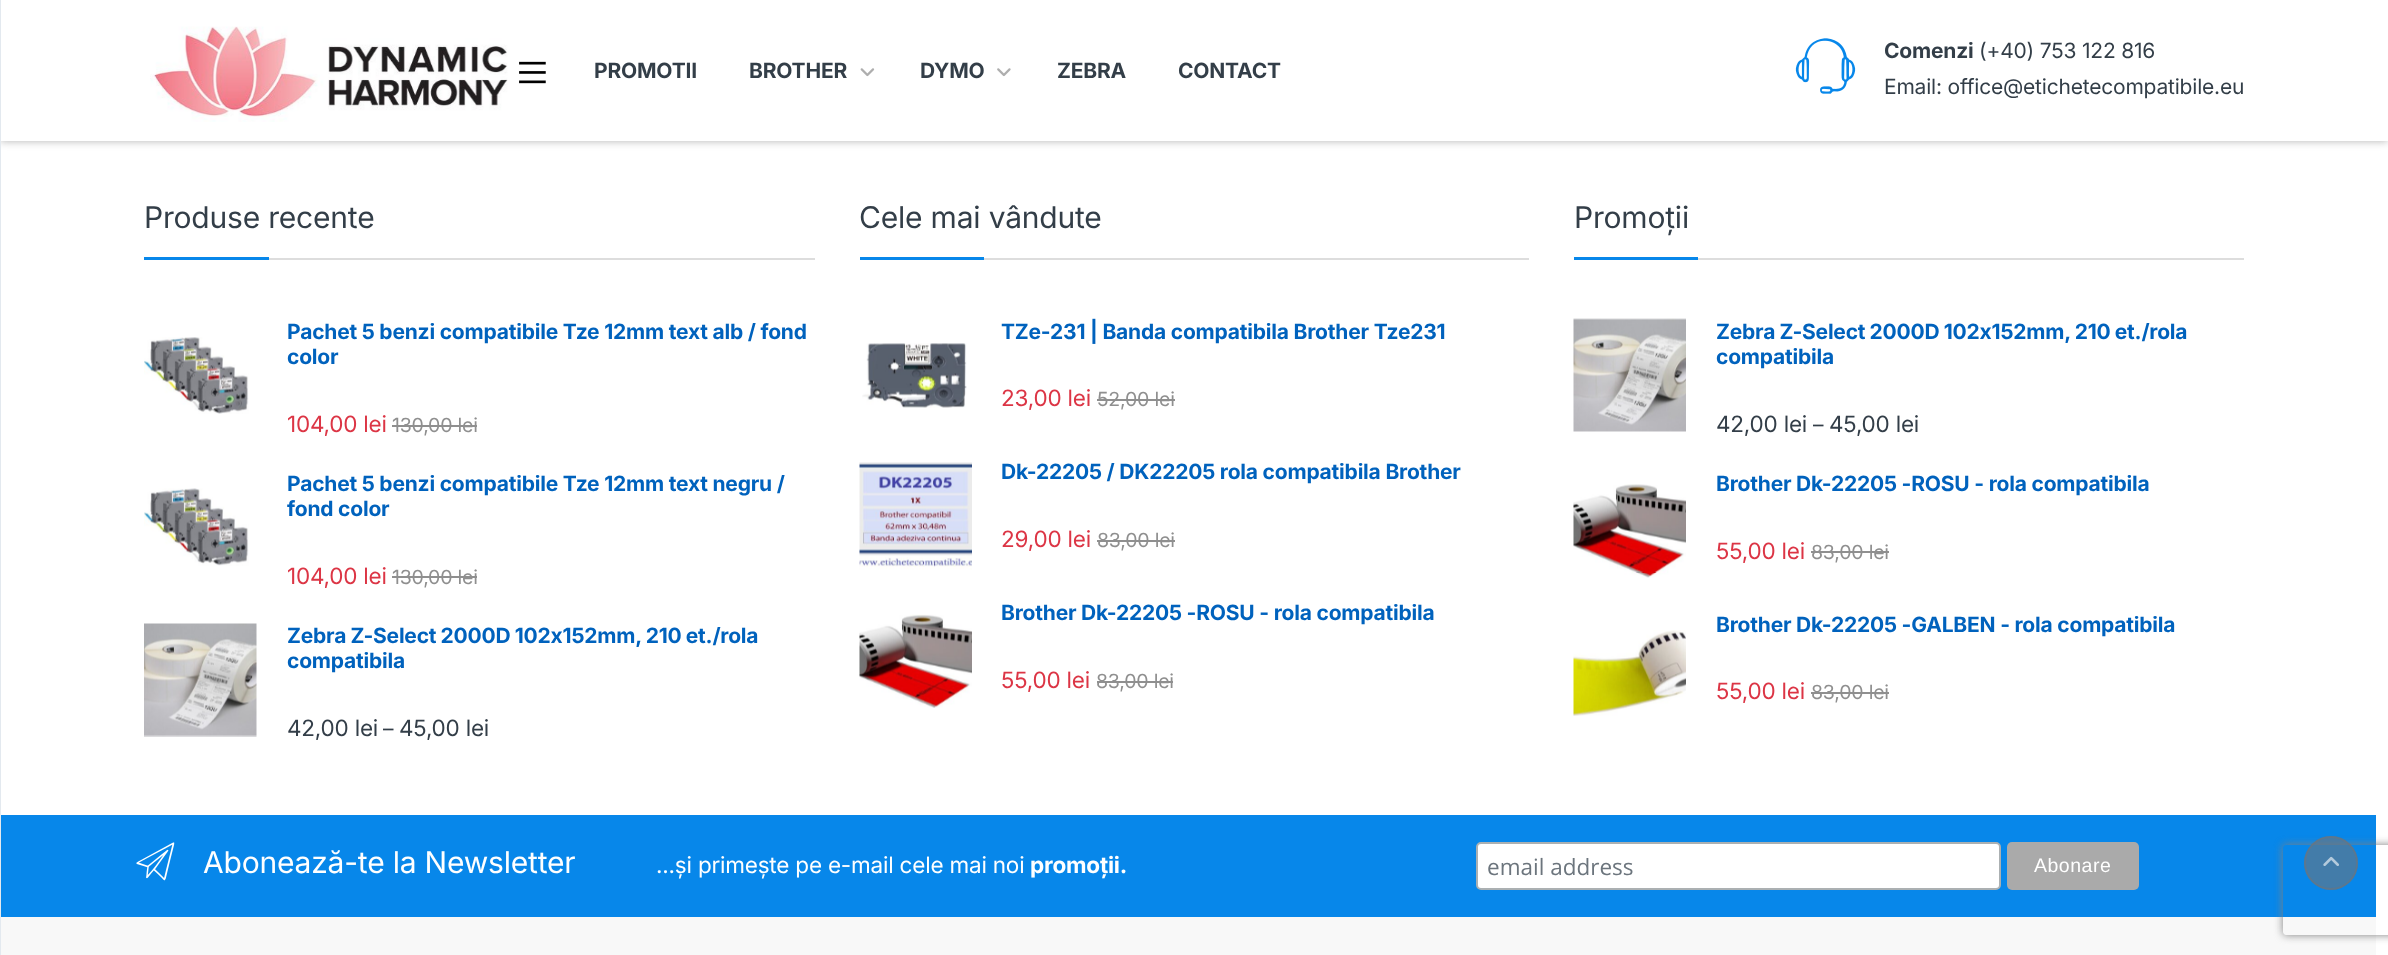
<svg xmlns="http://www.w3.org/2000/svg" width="2388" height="955">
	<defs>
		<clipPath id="clip1"><path d="M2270 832H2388V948H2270ZM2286 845H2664C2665.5 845 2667 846.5 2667 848V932C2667 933.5 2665.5 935 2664 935H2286C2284.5 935 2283 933.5 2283 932V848C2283 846.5 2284.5 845 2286 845Z" clip-rule="evenodd" /></clipPath>
	</defs>
	<rect width="100%" height="100%" fill="#FFFFFF" />
	<rect x="0" y="0" width="2388" height="141" fill="#010101" fill-opacity="0.3" filter="blur(4.5px)" />
	<rect x="1" y="0" width="2387" height="141" fill="#FFFFFF" />
	<rect x="0" y="0" width="1" height="955" fill="#E3E9EF" />
	<image x="519" y="61" width="27" height="23" href="assets/img1.png" />
	<image x="150" y="26" width="358" height="96" href="assets/img2.png" />
	<g font-family="Inter" font-size="21" font-weight="700" letter-spacing="-0.2" fill="#333E48">
		<text x="594" y="78">PROMOTII</text>
		<text x="749" y="78">BROTHER</text>
	</g>
	<image x="860" y="68" width="15" height="9" href="assets/img3.png" />
	<text x="920" y="78" font-family="Inter" font-size="21" font-weight="700" letter-spacing="-0.2" fill="#333E48">DYMO</text>
	<image x="997" y="68" width="14" height="9" href="assets/img4.png" />
	<g font-family="Inter" font-size="21" font-weight="700" letter-spacing="-0.2" fill="#333E48">
		<text x="1057" y="78">ZEBRA</text>
		<text x="1178" y="78">CONTACT</text>
	</g>
	<image x="1795" y="38" width="61" height="56" href="assets/img5.png" />
	<text x="1884" y="58" font-family="Inter" font-size="21" font-weight="700" letter-spacing="-0.2" fill="#333E48">Comenzi</text>
	<g font-family="Inter" font-size="21" letter-spacing="-0.2" fill="#333E48">
		<text x="1979" y="58">(+40) 753 122 816</text>
		<text x="1884" y="94">Email: office@etichetecompatibile.eu</text>
	</g>
	<rect x="269" y="258" width="546" height="2" fill="#DDDDDD" />
	<text x="144" y="228" font-family="Inter" font-size="30" letter-spacing="-0.2" fill="#333E48">Produse recente</text>
	<rect x="144" y="257" width="125" height="3" fill="#0787EA" />
	<image x="144" y="337" width="105" height="77" href="assets/img6.png" />
	<g font-family="Inter" font-size="21" font-weight="700" letter-spacing="-0.2" fill="#0062BD">
		<text x="287" y="339">Pachet 5 benzi compatibile Tze 12mm text alb / fond</text>
		<text x="287" y="364">color</text>
	</g>
	<text x="287" y="432" font-family="Inter" font-size="22.5" letter-spacing="-0.2" fill="#DC3545">104,00 lei</text>
	<text x="392" y="432" font-family="Inter" font-size="19.5" letter-spacing="-0.2" fill="#8F8F8F">130,00 lei</text>
	<rect x="392" y="425" width="85" height="2" fill="#8F8F8F" />
	<image x="144" y="488" width="105" height="78" href="assets/img7.png" />
	<g font-family="Inter" font-size="21" font-weight="700" letter-spacing="-0.2" fill="#0062BD">
		<text x="287" y="491">Pachet 5 benzi compatibile Tze 12mm text negru /</text>
		<text x="287" y="516">fond color</text>
	</g>
	<text x="287" y="584" font-family="Inter" font-size="22.5" letter-spacing="-0.2" fill="#DC3545">104,00 lei</text>
	<text x="392" y="584" font-family="Inter" font-size="19.5" letter-spacing="-0.2" fill="#8F8F8F">130,00 lei</text>
	<rect x="392" y="576" width="85" height="2" fill="#8F8F8F" />
	<image x="144" y="623" width="113" height="114" href="assets/img8.png" />
	<g font-family="Inter" font-size="21" font-weight="700" letter-spacing="-0.2" fill="#0062BD">
		<text x="287" y="643" word-spacing="-0.5">Zebra Z-Select 2000D 102x152mm, 210 et./rola</text>
		<text x="287" y="668">compatibila</text>
	</g>
	<text x="287" y="736" font-family="Inter" font-size="22.5" letter-spacing="-0.2" fill="#333E48">42,00 lei</text>
	<text x="383" y="736" font-family="Inter" font-size="21" letter-spacing="-0.2" fill="#333E48">–</text>
	<text x="399" y="736" font-family="Inter" font-size="22.5" letter-spacing="-0.2" fill="#333E48">45,00 lei</text>
	<rect x="984" y="258" width="545" height="2" fill="#DDDDDD" />
	<text x="859" y="228" font-family="Inter" font-size="30" letter-spacing="-0.2" fill="#333E48">Cele mai vândute</text>
	<rect x="860" y="257" width="124" height="3" fill="#0787EA" />
	<text x="1001" y="339" font-family="Inter" font-size="21" font-weight="700" letter-spacing="-0.2" fill="#0062BD">TZe-231 | Banda compatibila Brother Tze231</text>
	<image x="862" y="343" width="105" height="65" href="assets/img9.png" />
	<text x="1001" y="406" font-family="Inter" font-size="22.5" letter-spacing="-0.2" fill="#DC3545">23,00 lei</text>
	<text x="1097" y="406" font-family="Inter" font-size="19.5" letter-spacing="-0.2" fill="#8F8F8F">52,00 lei</text>
	<rect x="1097" y="399" width="78" height="2" fill="#8F8F8F" />
	<image x="859" y="462" width="113" height="108" href="assets/img10.png" />
	<text x="1001" y="479" font-family="Inter" font-size="21" font-weight="700" letter-spacing="-0.2" fill="#0062BD">Dk-22205 / DK22205 rola compatibila Brother</text>
	<text x="1001" y="547" font-family="Inter" font-size="22.5" letter-spacing="-0.2" fill="#DC3545">29,00 lei</text>
	<text x="1097" y="547" font-family="Inter" font-size="19.5" letter-spacing="-0.2" fill="#8F8F8F">83,00 lei</text>
	<rect x="1097" y="540" width="78" height="2" fill="#8F8F8F" />
	<image x="859" y="614" width="113" height="94" href="assets/img11.png" />
	<text x="1001" y="620" font-family="Inter" font-size="21" font-weight="700" letter-spacing="-0.2" fill="#0062BD">Brother Dk-22205 -ROSU - rola compatibila</text>
	<text x="1001" y="688" font-family="Inter" font-size="22.5" letter-spacing="-0.2" fill="#DC3545">55,00 lei</text>
	<text x="1096" y="688" font-family="Inter" font-size="19.5" letter-spacing="-0.2" fill="#8F8F8F">83,00 lei</text>
	<rect x="1097" y="681" width="76" height="2" fill="#8F8F8F" />
	<rect x="1698" y="258" width="546" height="2" fill="#DDDDDD" />
	<text x="1574" y="228" font-family="Inter" font-size="30" letter-spacing="-0.2" fill="#333E48">Promoții</text>
	<rect x="1574" y="257" width="124" height="3" fill="#0787EA" />
	<image x="1573" y="318" width="113" height="114" href="assets/img12.png" />
	<g font-family="Inter" font-size="21" font-weight="700" letter-spacing="-0.2" fill="#0062BD">
		<text x="1716" y="339" word-spacing="-0.5">Zebra Z-Select 2000D 102x152mm, 210 et./rola</text>
		<text x="1716" y="364">compatibila</text>
	</g>
	<text x="1716" y="432" font-family="Inter" font-size="22.5" letter-spacing="-0.2" fill="#333E48">42,00 lei</text>
	<text x="1813" y="432" font-family="Inter" font-size="21" letter-spacing="-0.2" fill="#333E48">–</text>
	<text x="1829" y="432" font-family="Inter" font-size="22.5" letter-spacing="-0.2" fill="#333E48">45,00 lei</text>
	<image x="1573" y="484" width="113" height="94" href="assets/img13.png" />
	<text x="1716" y="491" font-family="Inter" font-size="21" font-weight="700" letter-spacing="-0.2" fill="#0062BD">Brother Dk-22205 -ROSU - rola compatibila</text>
	<text x="1716" y="559" font-family="Inter" font-size="22.5" letter-spacing="-0.2" fill="#DC3545">55,00 lei</text>
	<text x="1811" y="559" font-family="Inter" font-size="19.5" letter-spacing="-0.2" fill="#8F8F8F">83,00 lei</text>
	<rect x="1811" y="551" width="78" height="2" fill="#8F8F8F" />
	<text x="1716" y="632" font-family="Inter" font-size="21" font-weight="700" letter-spacing="-0.2" fill="#0062BD">Brother Dk-22205 -GALBEN - rola compatibila</text>
	<image x="1573" y="630" width="113" height="86" href="assets/img14.png" />
	<text x="1716" y="699" font-family="Inter" font-size="22.5" letter-spacing="-0.2" fill="#DC3545">55,00 lei</text>
	<text x="1811" y="699" font-family="Inter" font-size="19.5" letter-spacing="-0.2" fill="#8F8F8F">83,00 lei</text>
	<rect x="1811" y="692" width="78" height="2" fill="#8F8F8F" />
	<rect x="1" y="815" width="2375" height="102" fill="#0787EA" />
	<image x="136" y="842" width="39" height="39" href="assets/img15.png" />
	<text x="203" y="873" font-family="Inter" font-size="30" letter-spacing="-0.2" fill="#FFFFFF">Abonează-te la Newsletter</text>
	<text x="656" y="873" font-family="Inter" font-size="22.5" letter-spacing="-0.2" fill="#FFFFFF">...și primește pe e-mail cele mai noi</text>
	<text x="1030" y="873" font-family="Inter" font-size="22.5" font-weight="700" letter-spacing="-0.2" fill="#FFFFFF">promoții.</text>
	<rect x="1477" y="843" width="523" height="46" rx="4" fill="#FFFFFF" stroke="#ABB0B2" stroke-width="2" />
	<text x="1487" y="875" font-family="Open Sans" font-size="22.5" fill="#6C757D">email address</text>
	<rect x="2007" y="842" width="132" height="48" rx="5" fill="#AAAAAA" />
	<text x="2034" y="872" font-family="Liberation Sans" font-size="19.5" letter-spacing="0.5" fill="#FFFFFF">Abonare</text>
	<rect x="1" y="917" width="2375" height="38" fill="#F8F8F8" />
	<g clip-path="url(#clip1)">
		<rect x="2283" y="845" width="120" height="90" rx="3" fill="#808080" filter="blur(4px)" />
	</g>
	<circle cx="2331" cy="863" r="27" fill="#6C757D" fill-opacity="0.6" />
	<circle cx="2331" cy="863" r="26" fill="none" stroke="#6C757D" stroke-opacity="0.6" stroke-width="2" />
	<image x="2323" y="856" width="16" height="10" href="assets/img16.png" />
</svg>
